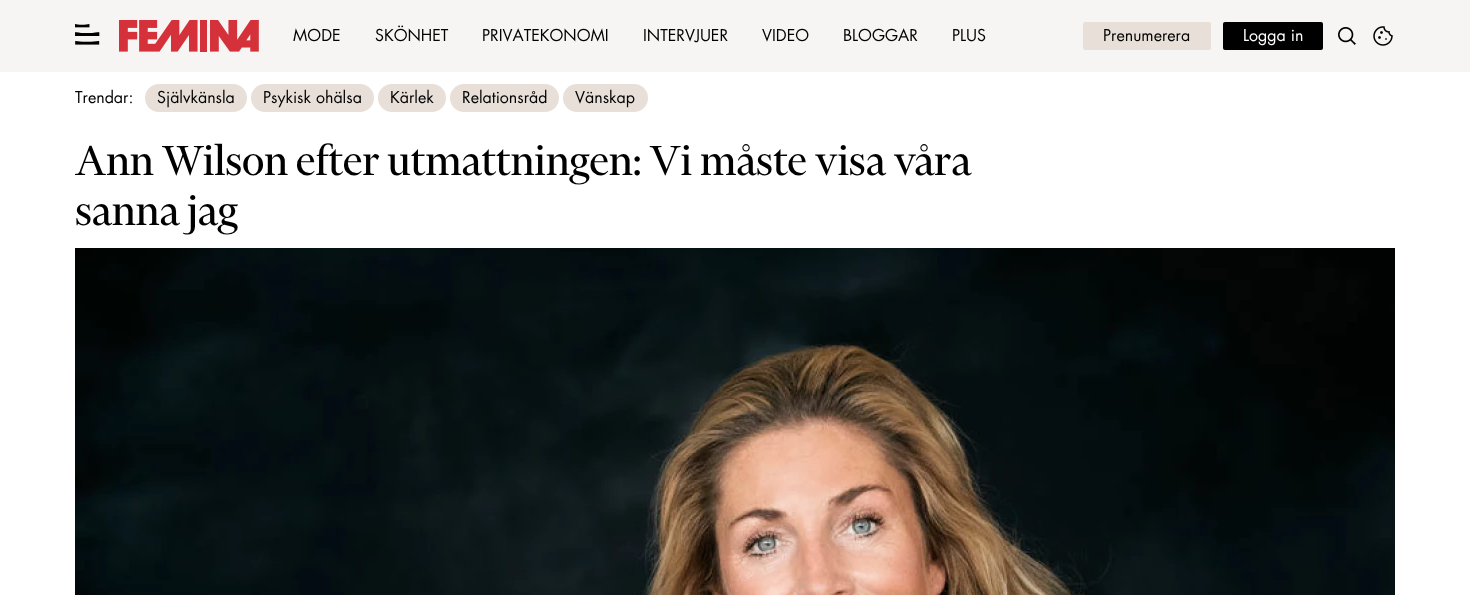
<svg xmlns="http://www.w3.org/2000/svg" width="1470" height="595">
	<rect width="100%" height="100%" fill="#FFFFFF" />
	<rect x="0" y="0" width="1470" height="72" fill="#F6F5F3" />
	<image x="75" y="24" width="25" height="21" href="assets/img1.png" />
	<image x="119" y="20" width="140" height="32" href="assets/img2.png" />
	<g font-family="Futura" font-size="16" fill="#000000">
		<text x="293" y="41">MODE</text>
		<text x="375" y="41">SKÖNHET</text>
		<text x="482" y="41">PRIVATEKONOMI</text>
		<text x="643" y="41">INTERVJUER</text>
		<text x="762" y="41">VIDEO</text>
		<text x="843" y="41">BLOGGAR</text>
		<text x="952" y="41">PLUS</text>
	</g>
	<rect x="1083" y="22" width="128" height="28" rx="2" fill="#E8E0D8" />
	<text x="1103" y="41" font-family="Futura" font-size="16" fill="#000000">Prenumerera</text>
	<rect x="1223" y="22" width="100" height="28" rx="2" fill="#000000" />
	<text x="1243" y="41" font-family="Futura" font-size="16" fill="#FFFFFF">Logga in</text>
	<image x="1338" y="27" width="18" height="18" href="assets/img3.png" />
	<image x="1373" y="26" width="20" height="20" href="assets/img4.png" />
	<text x="75" y="103" font-family="Futura" font-size="16" fill="#000000">Trendar:</text>
	<rect x="145" y="84" width="102" height="28" rx="14" fill="#E8E0D8" />
	<text x="157" y="103" font-family="Futura" font-size="16" fill="#000000">Självkänsla</text>
	<rect x="251" y="84" width="123" height="28" rx="14" fill="#E8E0D8" />
	<text x="263" y="103" font-family="Futura" font-size="16" fill="#000000">Psykisk ohälsa</text>
	<rect x="378" y="84" width="68" height="28" rx="14" fill="#E8E0D8" />
	<text x="390" y="103" font-family="Futura" font-size="16" fill="#000000">Kärlek</text>
	<rect x="450" y="84" width="109" height="28" rx="14" fill="#E8E0D8" />
	<text x="462" y="103" font-family="Futura" font-size="16" fill="#000000">Relationsråd</text>
	<rect x="563" y="84" width="85" height="28" rx="14" fill="#E8E0D8" />
	<text x="575" y="103" font-family="Futura" font-size="16" fill="#000000">Vänskap</text>
	<g font-family="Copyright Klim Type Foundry" font-size="48" fill="#000000">
		<text x="75" y="175">Ann Wilson efter utmattningen: Vi måste visa våra</text>
		<text x="75" y="225">sanna jag</text>
	</g>
	<image x="75" y="248" width="1320" height="347" href="assets/img5.png" />
</svg>
